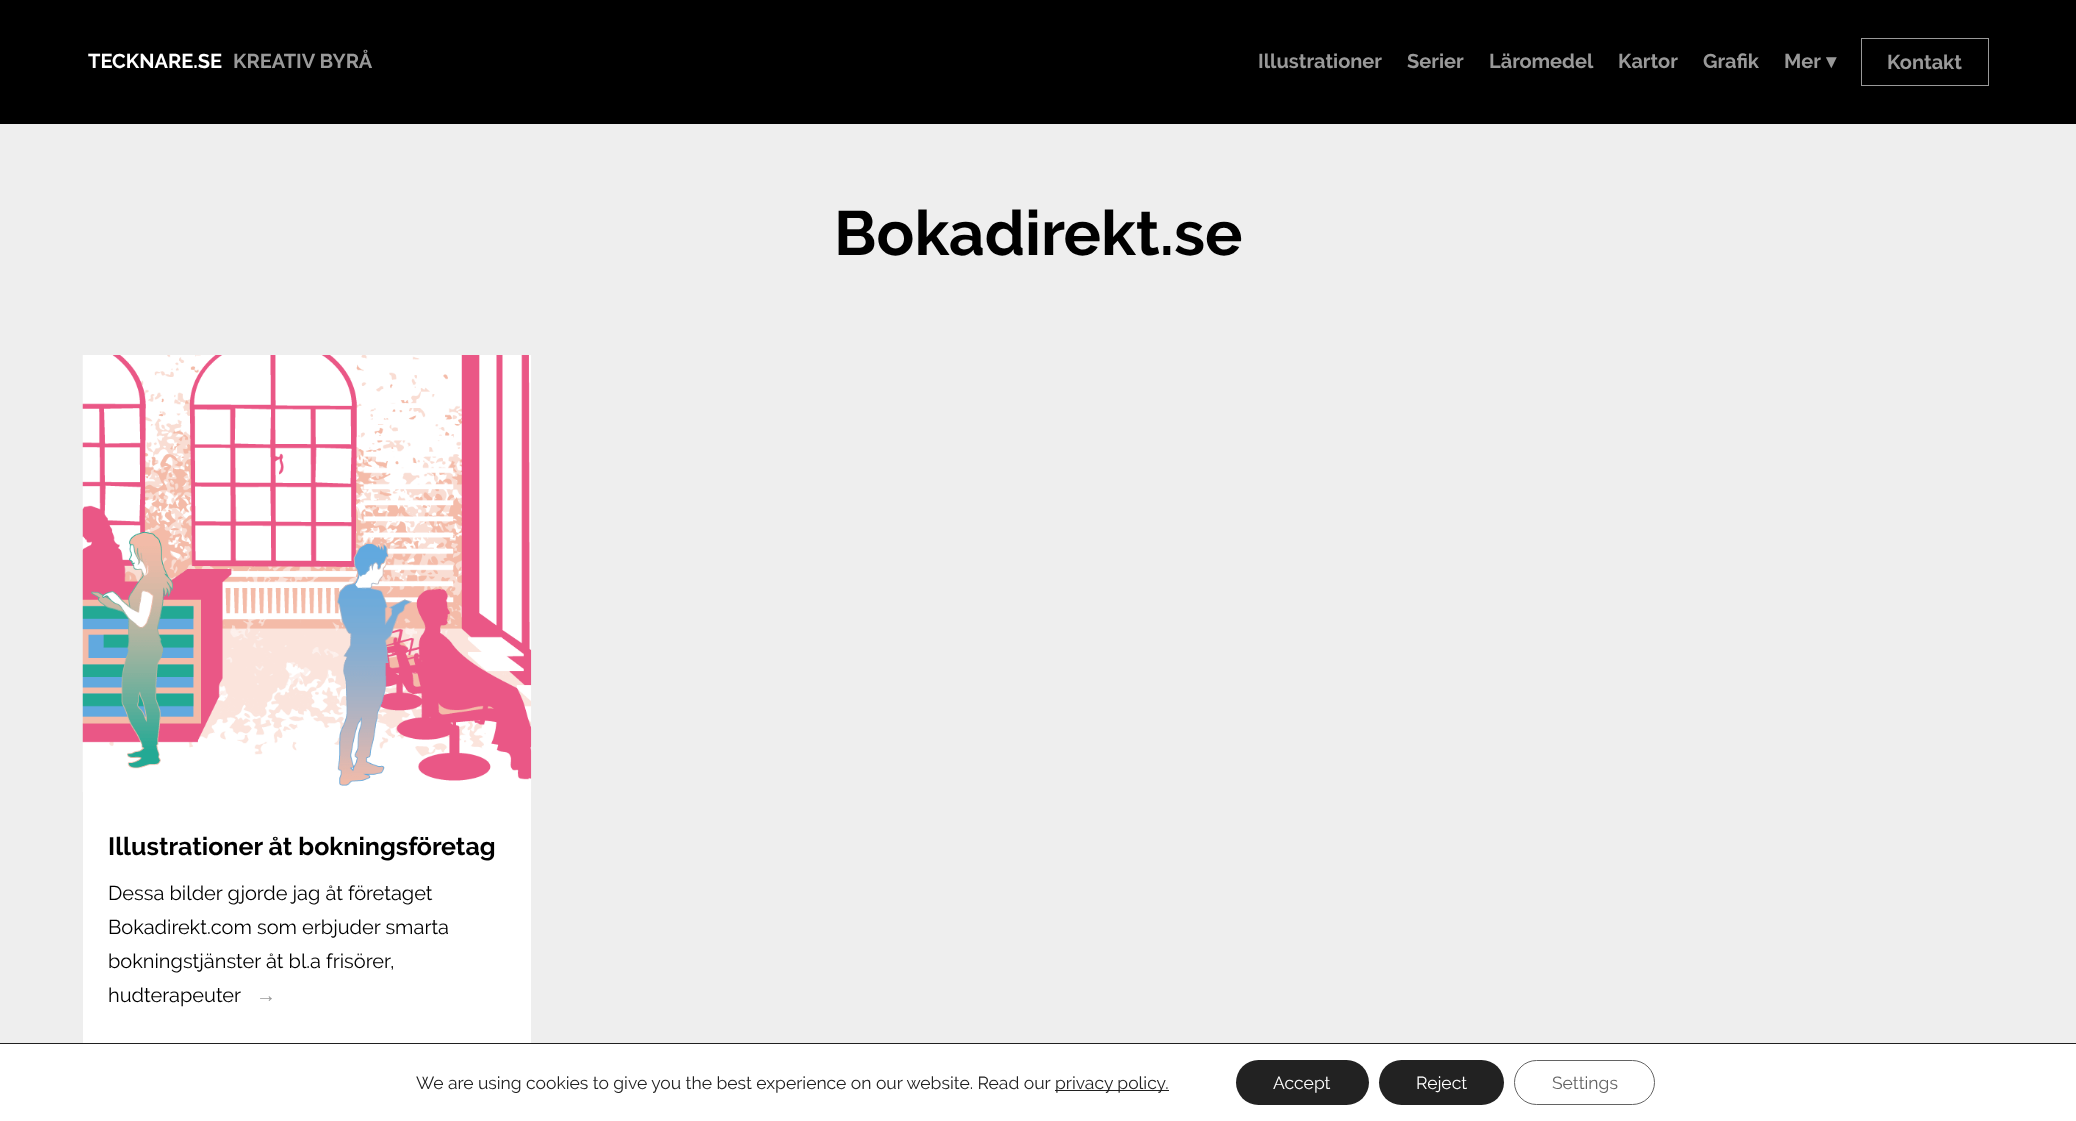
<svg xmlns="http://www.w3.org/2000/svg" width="2076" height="1121">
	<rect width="100%" height="100%" fill="#EEEEEE" />
	<rect x="0" y="0" width="2076" height="124" fill="#000000" />
	<text x="88" y="68" font-family="Raleway" font-size="20" font-weight="700" fill="#FFFFFF">TECKNARE.SE</text>
	<g font-family="Raleway" font-size="20" font-weight="700" fill="#999999">
		<text x="233" y="68">KREATIV BYRÅ</text>
		<text x="1258" y="68">Illustrationer</text>
		<text x="1407" y="68">Serier</text>
		<text x="1489" y="68">Läromedel</text>
		<text x="1618" y="68">Kartor</text>
		<text x="1703" y="68">Grafik</text>
		<text x="1784" y="68">Mer</text>
	</g>
	<text x="1826" y="68" font-family="DejaVu Sans" font-size="20" font-weight="700" fill="#999999">▾</text>
	<rect x="1861.5" y="38.5" width="127" height="47" fill="none" stroke="#999999" />
	<text x="1887" y="69" font-family="Raleway" font-size="20" font-weight="700" fill="#999999">Kontakt</text>
	<text x="834" y="255" font-family="Raleway" font-size="62.5" font-weight="700" fill="#000000">Bokadirekt.se</text>
	<rect x="83" y="792" width="448" height="251" fill="#FFFFFF" />
	<image x="82" y="355" width="450" height="437" href="assets/img1.png" />
	<text x="108" y="855" font-family="Raleway" font-size="25" font-weight="700" fill="#000000">Illustrationer åt bokningsföretag</text>
	<g font-family="Raleway" font-size="20" fill="#000000">
		<text x="108" y="900">Dessa bilder gjorde jag åt företaget</text>
		<text x="108" y="934">Bokadirekt.com som erbjuder smarta</text>
		<text x="108" y="968">bokningstjänster åt bl.a frisörer,</text>
		<text x="108" y="1002">hudterapeuter</text>
	</g>
	<text x="256" y="1002" font-family="Liberation Sans" font-size="20" fill="#999999">→</text>
	<rect x="0" y="1044" width="2076" height="77" fill="#FFFFFF" />
	<rect x="0" y="1043" width="2076" height="1" fill="#202020" />
	<text x="416" y="1089" font-family="Raleway" font-size="17.5" fill="#202020">We are using cookies to give you the best experience on our website. Read our</text>
	<rect x="1055" y="1090" width="114" height="1" fill="#202020" />
	<text x="1055" y="1089" font-family="Raleway" font-size="17.5" fill="#202020">privacy policy.</text>
	<rect x="1236" y="1060" width="133" height="45" rx="22.5" fill="#222222" />
	<text x="1273" y="1089" font-family="Raleway" font-size="17.5" fill="#FFFFFF">Accept</text>
	<rect x="1379" y="1060" width="125" height="45" rx="22.5" fill="#222222" />
	<text x="1416" y="1089" font-family="Raleway" font-size="17.5" fill="#FFFFFF">Reject</text>
	<rect x="1514.5" y="1060.5" width="140" height="44" rx="22" fill="none" stroke="#636363" />
	<text x="1552" y="1089" font-family="Raleway" font-size="17.5" fill="#636363">Settings</text>
</svg>
